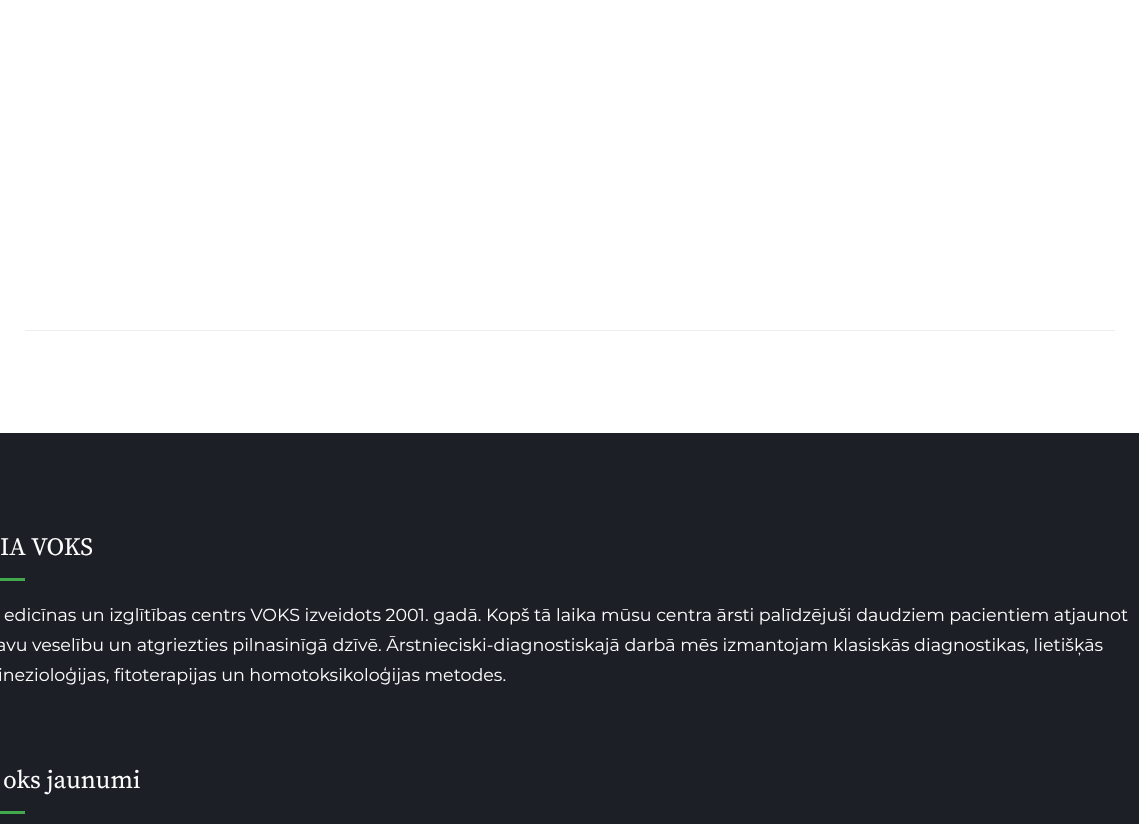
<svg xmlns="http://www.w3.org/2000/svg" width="1139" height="824">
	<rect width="100%" height="100%" fill="#FFFFFF" />
	<rect x="25" y="330" width="1090" height="1" fill="#EDEDED" />
	<rect x="0" y="433" width="1139" height="391" fill="#1D1F27" />
	<text x="0" y="555" font-family="Source Serif Pro" font-size="25" fill="#FFFFFF">IA VOKS</text>
	<rect x="0" y="578" width="25" height="3" fill="#41A84E" />
	<g font-family="Montserrat" font-size="17.5" fill="#FFFFFF">
		<text x="4" y="621">edicīnas un izglītības centrs VOKS izveidots 2001. gadā. Kopš tā laika mūsu centra ārsti palīdzējuši daudziem pacientiem atjaunot</text>
		<text x="-4" y="651">avu veselību un atgriezties pilnasinīgā dzīvē. Ārstnieciski-diagnostiskajā darbā mēs izmantojam klasiskās diagnostikas, lietišķās</text>
		<text x="-2" y="681">inezioloģijas, fitoterapijas un homotoksikoloģijas metodes.</text>
	</g>
	<text x="3" y="788" font-family="Source Serif Pro" font-size="25" fill="#FFFFFF">oks jaunumi</text>
	<rect x="0" y="811" width="25" height="3" fill="#41A84E" />
</svg>
